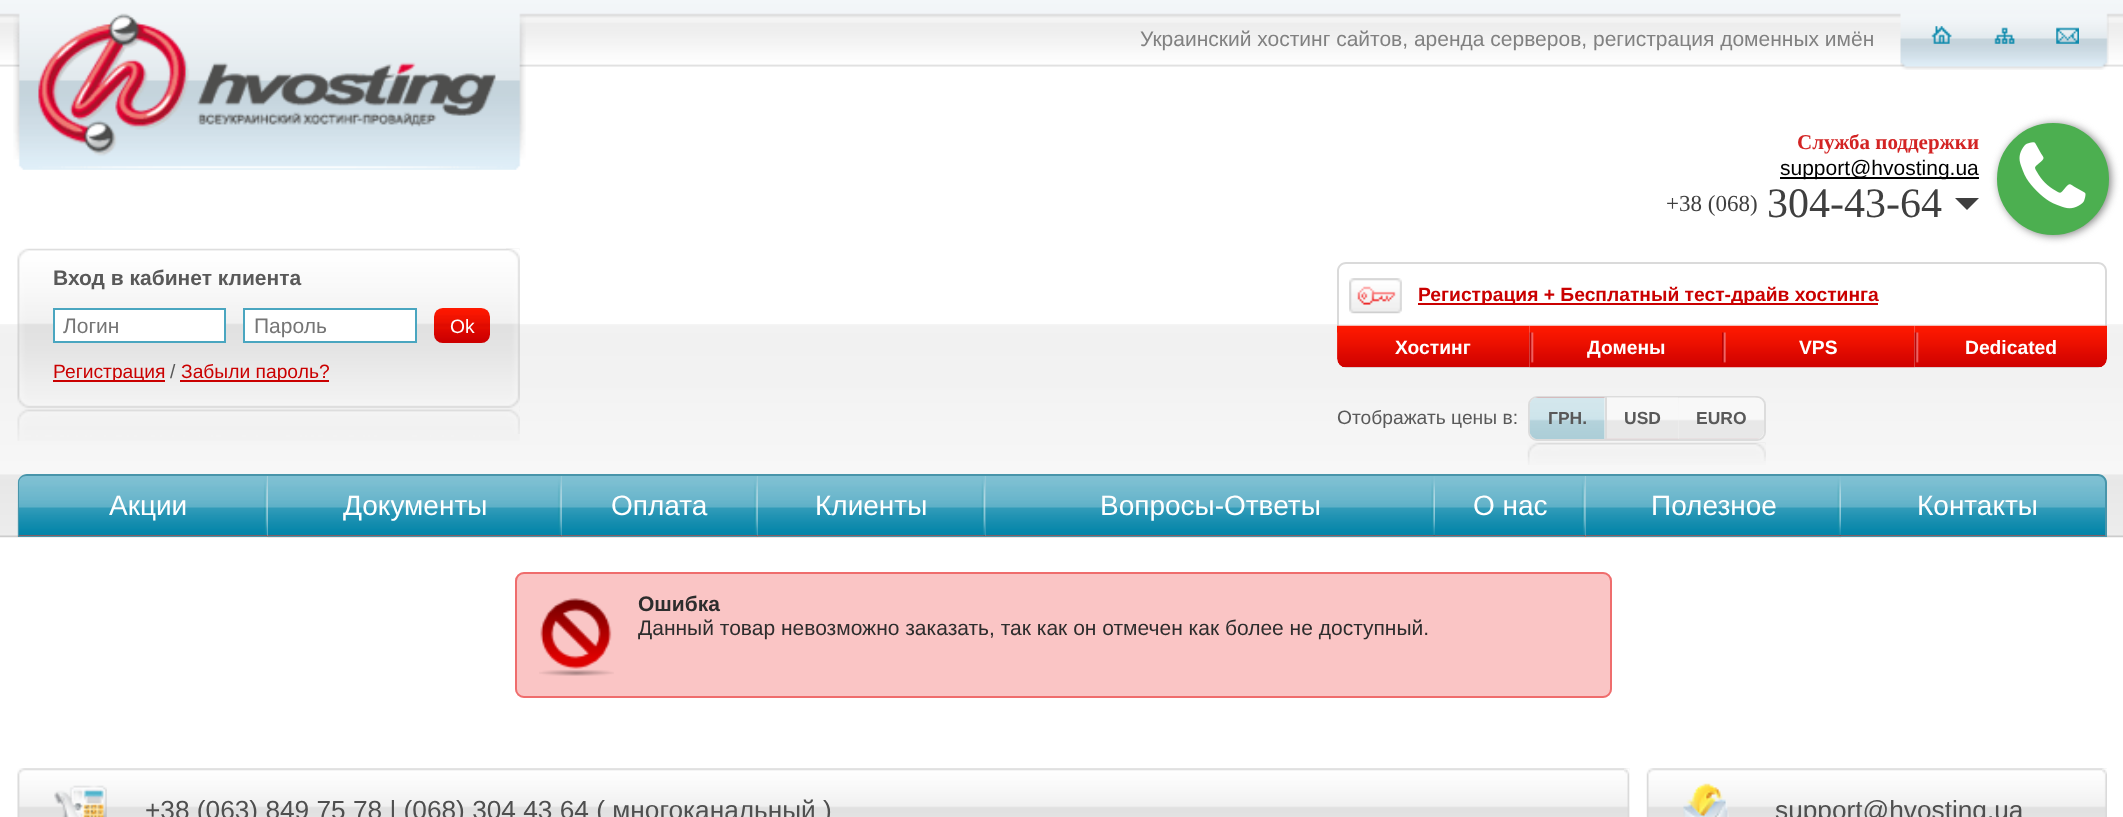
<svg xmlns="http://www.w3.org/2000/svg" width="2123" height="817">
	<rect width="100%" height="100%" fill="#FFFFFF" />
	<image x="0" y="0" width="2123" height="67" href="assets/img1.png" />
	<image x="13" y="13" width="513" height="157" href="assets/img2.png" />
	<text x="1140" y="46" font-family="Liberation Sans" font-size="21" fill="#818181">Украинский хостинг сайтов, аренда серверов, регистрация доменных имён</text>
	<image x="1900" y="13" width="209" height="57" href="assets/img3.png" />
	<image x="1931" y="26" width="21" height="18" href="assets/img4.png" />
	<image x="1994" y="27" width="21" height="17" href="assets/img5.png" />
	<image x="2056" y="27" width="23" height="17" href="assets/img6.png" />
	<text x="1797" y="149" font-family="Liberation Serif" font-size="21" font-weight="700" fill="#D32424">Служба поддержки</text>
	<rect x="1780" y="177" width="199" height="2" fill="#000000" />
	<text x="1780" y="175" font-family="Liberation Sans" font-size="21" fill="#000000">support@hvosting.ua</text>
	<text x="1666" y="211" font-family="Liberation Serif" font-size="23" fill="#3F3F3F">+38 (068)</text>
	<text x="1767" y="217" font-family="Liberation Serif" font-size="42" fill="#3F3F3F">304-43-64</text>
	<path d="M1955 198H1979L1967 210Z" fill="#3F3F3F" />
	<rect x="1999" y="124" width="112" height="112" rx="56" fill="#808080" filter="blur(4.5px)" />
	<circle cx="2053" cy="179" r="55" fill="#4CAF50" stroke="#4CAF50" stroke-width="2" />
	<image x="2019" y="142" width="67" height="67" href="assets/img7.png" />
	<image x="0" y="324" width="2123" height="150" href="assets/img8.png" />
	<image x="17" y="248" width="503" height="193" href="assets/img9.png" />
	<image x="506" y="248" width="14" height="186" href="assets/img10.png" />
	<text x="53" y="285" font-family="Liberation Sans" font-size="21" font-weight="700" fill="#595959">Вход в кабинет клиента</text>
	<rect x="54" y="309" width="171" height="33" fill="#FFFFFF" stroke="#4AA6C0" stroke-width="2" />
	<text x="63" y="333" font-family="Liberation Sans" font-size="21" fill="#757575">Логин</text>
	<rect x="244" y="309" width="172" height="33" fill="#FFFFFF" stroke="#4AA6C0" stroke-width="2" />
	<text x="254" y="333" font-family="Liberation Sans" font-size="21" fill="#757575">Пароль</text>
	<image x="434" y="308" width="56" height="35" href="assets/img11.png" />
	<text x="450" y="333" font-family="Liberation Sans" font-size="19.25" fill="#FFFFFF">Ok</text>
	<rect x="53" y="380" width="112" height="2" fill="#CA0000" />
	<text x="53" y="378" font-family="Liberation Sans" font-size="19.25" fill="#CA0000">Регистрация</text>
	<text x="170" y="378" font-family="Liberation Sans" font-size="19.25" fill="#595959">/</text>
	<rect x="180" y="380" width="149" height="2" fill="#CA0000" />
	<text x="181" y="378" font-family="Liberation Sans" font-size="19.25" fill="#CA0000">Забыли пароль?</text>
	<path d="M1346 262H2098C2103 262 2107 266 2107 271V326H1337V271C1337 266 1341 262 1346 262ZM1346 264H2098C2102 264 2105 267 2105 271V326H1339V271C1339 267 1342 264 1346 264Z" fill="#DADADA" fill-rule="evenodd" />
	<image x="1349" y="278" width="53" height="36" href="assets/img12.png" />
	<rect x="1418" y="303" width="460" height="2" fill="#CA0000" />
	<text x="1418" y="301" font-family="Liberation Sans" font-size="19.25" font-weight="700" fill="#CA0000">Регистрация + Бесплатный тест-драйв хостинга</text>
	<image x="1337" y="325" width="193" height="43" href="assets/img13.png" />
	<text x="1395" y="354" font-family="Liberation Sans" font-size="19.25" font-weight="700" fill="#FFFFFF">Хостинг</text>
	<image x="1529" y="325" width="193" height="43" href="assets/img14.png" />
	<text x="1587" y="354" font-family="Liberation Sans" font-size="19.25" font-weight="700" fill="#FFFFFF">Домены</text>
	<image x="1722" y="325" width="193" height="43" href="assets/img15.png" />
	<text x="1799" y="354" font-family="Liberation Sans" font-size="19.25" font-weight="700" fill="#FFFFFF">VPS</text>
	<image x="1914" y="325" width="193" height="43" href="assets/img16.png" />
	<text x="1965" y="354" font-family="Liberation Sans" font-size="19.25" font-weight="700" fill="#FFFFFF">Dedicated</text>
	<text x="1337" y="424" font-family="Liberation Sans" font-size="19.25" fill="#595959">Отображать цены в:</text>
	<rect x="1529" y="397" width="236" height="43" rx="8" fill="none" stroke="#DCDCDC" stroke-width="2" />
	<image x="1529" y="397" width="76" height="42" href="assets/img17.png" />
	<text x="1548" y="424" font-family="Liberation Sans" font-size="17.5" font-weight="700" fill="#595959">ГРН.</text>
	<image x="1604" y="397" width="75" height="43" href="assets/img18.png" />
	<rect x="1605" y="397" width="2" height="42" fill="#DCDCDC" />
	<text x="1624" y="424" font-family="Liberation Sans" font-size="17.5" font-weight="700" fill="#595959">USD</text>
	<image x="1678" y="397" width="86" height="42" href="assets/img19.png" />
	<text x="1696" y="424" font-family="Liberation Sans" font-size="17.5" font-weight="700" fill="#595959">EURO</text>
	<image x="1527" y="442" width="239" height="23" href="assets/img20.png" />
	<image x="1756" y="443" width="10" height="18" href="assets/img21.png" />
	<image x="0" y="474" width="2123" height="64" href="assets/img22.png" />
	<image x="17" y="476" width="251" height="61" href="assets/img23.png" />
	<path d="M26 476H268V474H27C22 474 18 478 18 483V537H268V536H19V483C19 479 22 476 26 476Z" fill="#4895AA" />
	<text x="109" y="515" font-family="Liberation Sans" font-size="28" fill="#FFFFFF">Акции</text>
	<image x="267" y="476" width="295" height="62" href="assets/img24.png" />
	<rect x="268" y="474" width="1573" height="2" fill="#4895AA" />
	<rect x="268" y="536" width="294" height="1" fill="#4895AA" />
	<text x="343" y="515" font-family="Liberation Sans" font-size="28" fill="#FFFFFF">Документы</text>
	<image x="561" y="476" width="197" height="62" href="assets/img25.png" />
	<rect x="562" y="536" width="196" height="1" fill="#4895AA" />
	<text x="611" y="515" font-family="Liberation Sans" font-size="28" fill="#FFFFFF">Оплата</text>
	<image x="757" y="476" width="229" height="62" href="assets/img26.png" />
	<rect x="758" y="536" width="227" height="1" fill="#4895AA" />
	<text x="815" y="515" font-family="Liberation Sans" font-size="28" fill="#FFFFFF">Клиенты</text>
	<image x="985" y="476" width="450" height="62" href="assets/img27.png" />
	<rect x="985" y="536" width="450" height="1" fill="#4895AA" />
	<text x="1100" y="515" font-family="Liberation Sans" font-size="28" fill="#FFFFFF">Вопросы-Ответы</text>
	<image x="1435" y="476" width="151" height="62" href="assets/img28.png" />
	<rect x="1435" y="536" width="151" height="1" fill="#4895AA" />
	<text x="1473" y="515" font-family="Liberation Sans" font-size="28" fill="#FFFFFF">О нас</text>
	<image x="1585" y="476" width="256" height="62" href="assets/img29.png" />
	<rect x="1586" y="536" width="255" height="1" fill="#4895AA" />
	<text x="1651" y="515" font-family="Liberation Sans" font-size="28" fill="#FFFFFF">Полезное</text>
	<image x="1841" y="476" width="266" height="60" href="assets/img30.png" />
	<path d="M1841 474H2098C2103 474 2107 478 2107 483V537H1841ZM1841 476H2098C2102 476 2105 479 2105 483V536H1841Z" fill="#4895AA" fill-rule="evenodd" />
	<text x="1917" y="515" font-family="Liberation Sans" font-size="28" fill="#FFFFFF">Контакты</text>
	<rect x="515" y="572" width="1097" height="126" rx="9" fill="#FAC5C5" />
	<image x="539" y="598" width="75" height="78" href="assets/img31.png" />
	<rect x="516" y="573" width="1095" height="124" rx="8" fill="none" stroke="#EF6D6D" stroke-width="2" />
	<text x="638" y="611" font-family="Liberation Sans" font-size="21" font-weight="700" fill="#2D2D2D">Ошибка</text>
	<text x="638" y="635" font-family="Liberation Sans" font-size="21" fill="#2D2D2D">Данный товар невозможно заказать, так как он отмечен как более не доступный.</text>
	<image x="17" y="768" width="1613" height="49" href="assets/img32.png" />
	<image x="1624" y="768" width="6" height="49" href="assets/img33.png" />
	<image x="54" y="785" width="53" height="32" href="assets/img34.png" />
	<text x="145" y="819" font-family="Liberation Sans" font-size="26.25" fill="#4F4F4F">+38 (063) 849 75 78 | (068) 304 43 64 ( многоканальный )</text>
	<image x="1646" y="768" width="461" height="49" href="assets/img35.png" />
	<image x="2102" y="768" width="5" height="49" href="assets/img36.png" />
	<image x="1683" y="783" width="46" height="34" href="assets/img37.png" />
	<text x="1775" y="819" font-family="Liberation Sans" font-size="26.25" fill="#4F4F4F">support@hvosting.ua</text>
</svg>
